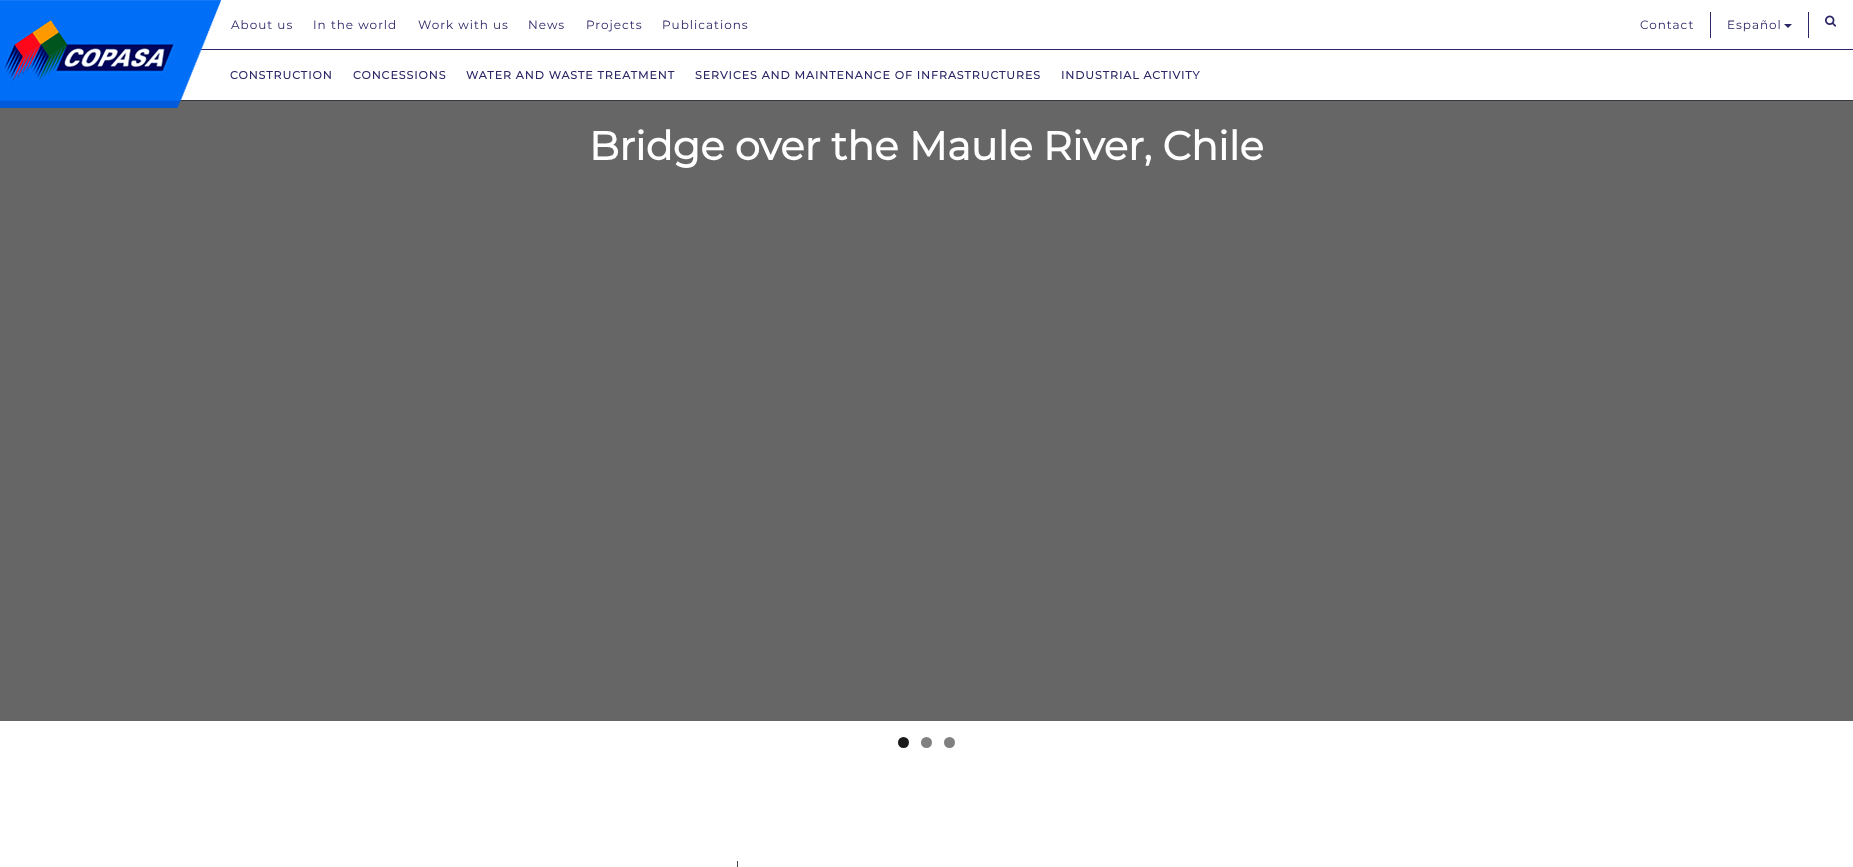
<svg xmlns="http://www.w3.org/2000/svg" width="1853" height="867">
	<rect width="100%" height="100%" fill="#FFFFFF" />
	<rect x="180" y="100" width="1673" height="1" fill="#33383F" />
	<rect x="201" y="49" width="1652" height="1" fill="#2B2666" />
	<rect x="0" y="101" width="1853" height="620" fill="#666666" />
	<image x="0" y="0" width="221" height="108" href="assets/img1.png" />
	<g font-family="Montserrat" font-size="12" font-weight="100" letter-spacing="1" fill="#2B2666">
		<text x="231" y="29">About us</text>
		<text x="313" y="29">In the world</text>
		<text x="418" y="29">Work with us</text>
		<text x="528" y="29">News</text>
		<text x="586" y="29">Projects</text>
		<text x="662" y="29">Publications</text>
	</g>
	<rect x="1710" y="12" width="1" height="26" fill="#2B2666" />
	<text x="1640" y="29" font-family="Montserrat" font-size="12" font-weight="100" letter-spacing="1" fill="#2B2666">Contact</text>
	<rect x="1808" y="12" width="1" height="26" fill="#2B2666" />
	<text x="1727" y="29" font-family="Montserrat" font-size="12" font-weight="100" letter-spacing="1" fill="#2B2666">Español</text>
	<path d="M1784 24H1792L1788 28Z" fill="#2B2666" />
	<image x="1825" y="15" width="12" height="12" href="assets/img2.png" />
	<g font-family="Montserrat" font-size="11" font-weight="700" letter-spacing="1" fill="#2B2666">
		<text x="230" y="79">CONSTRUCTION</text>
		<text x="353" y="79">CONCESSIONS</text>
		<text x="466" y="79">WATER AND WASTE TREATMENT</text>
		<text x="695" y="79">SERVICES AND MAINTENANCE OF INFRASTRUCTURES</text>
		<text x="1061" y="79">INDUSTRIAL ACTIVITY</text>
	</g>
	<text x="589" y="160" font-family="Montserrat" font-size="40" font-weight="700" fill="#FFFFFF">Bridge over the Maule River, Chile</text>
	<circle cx="903.5" cy="742.5" r="5.5" fill="#1A1A1A" />
	<circle cx="926.5" cy="742.5" r="5.5" fill="#808080" />
	<circle cx="949.5" cy="742.5" r="5.5" fill="#808080" />
	<rect x="737" y="861" width="1" height="6" fill="#464646" />
</svg>
